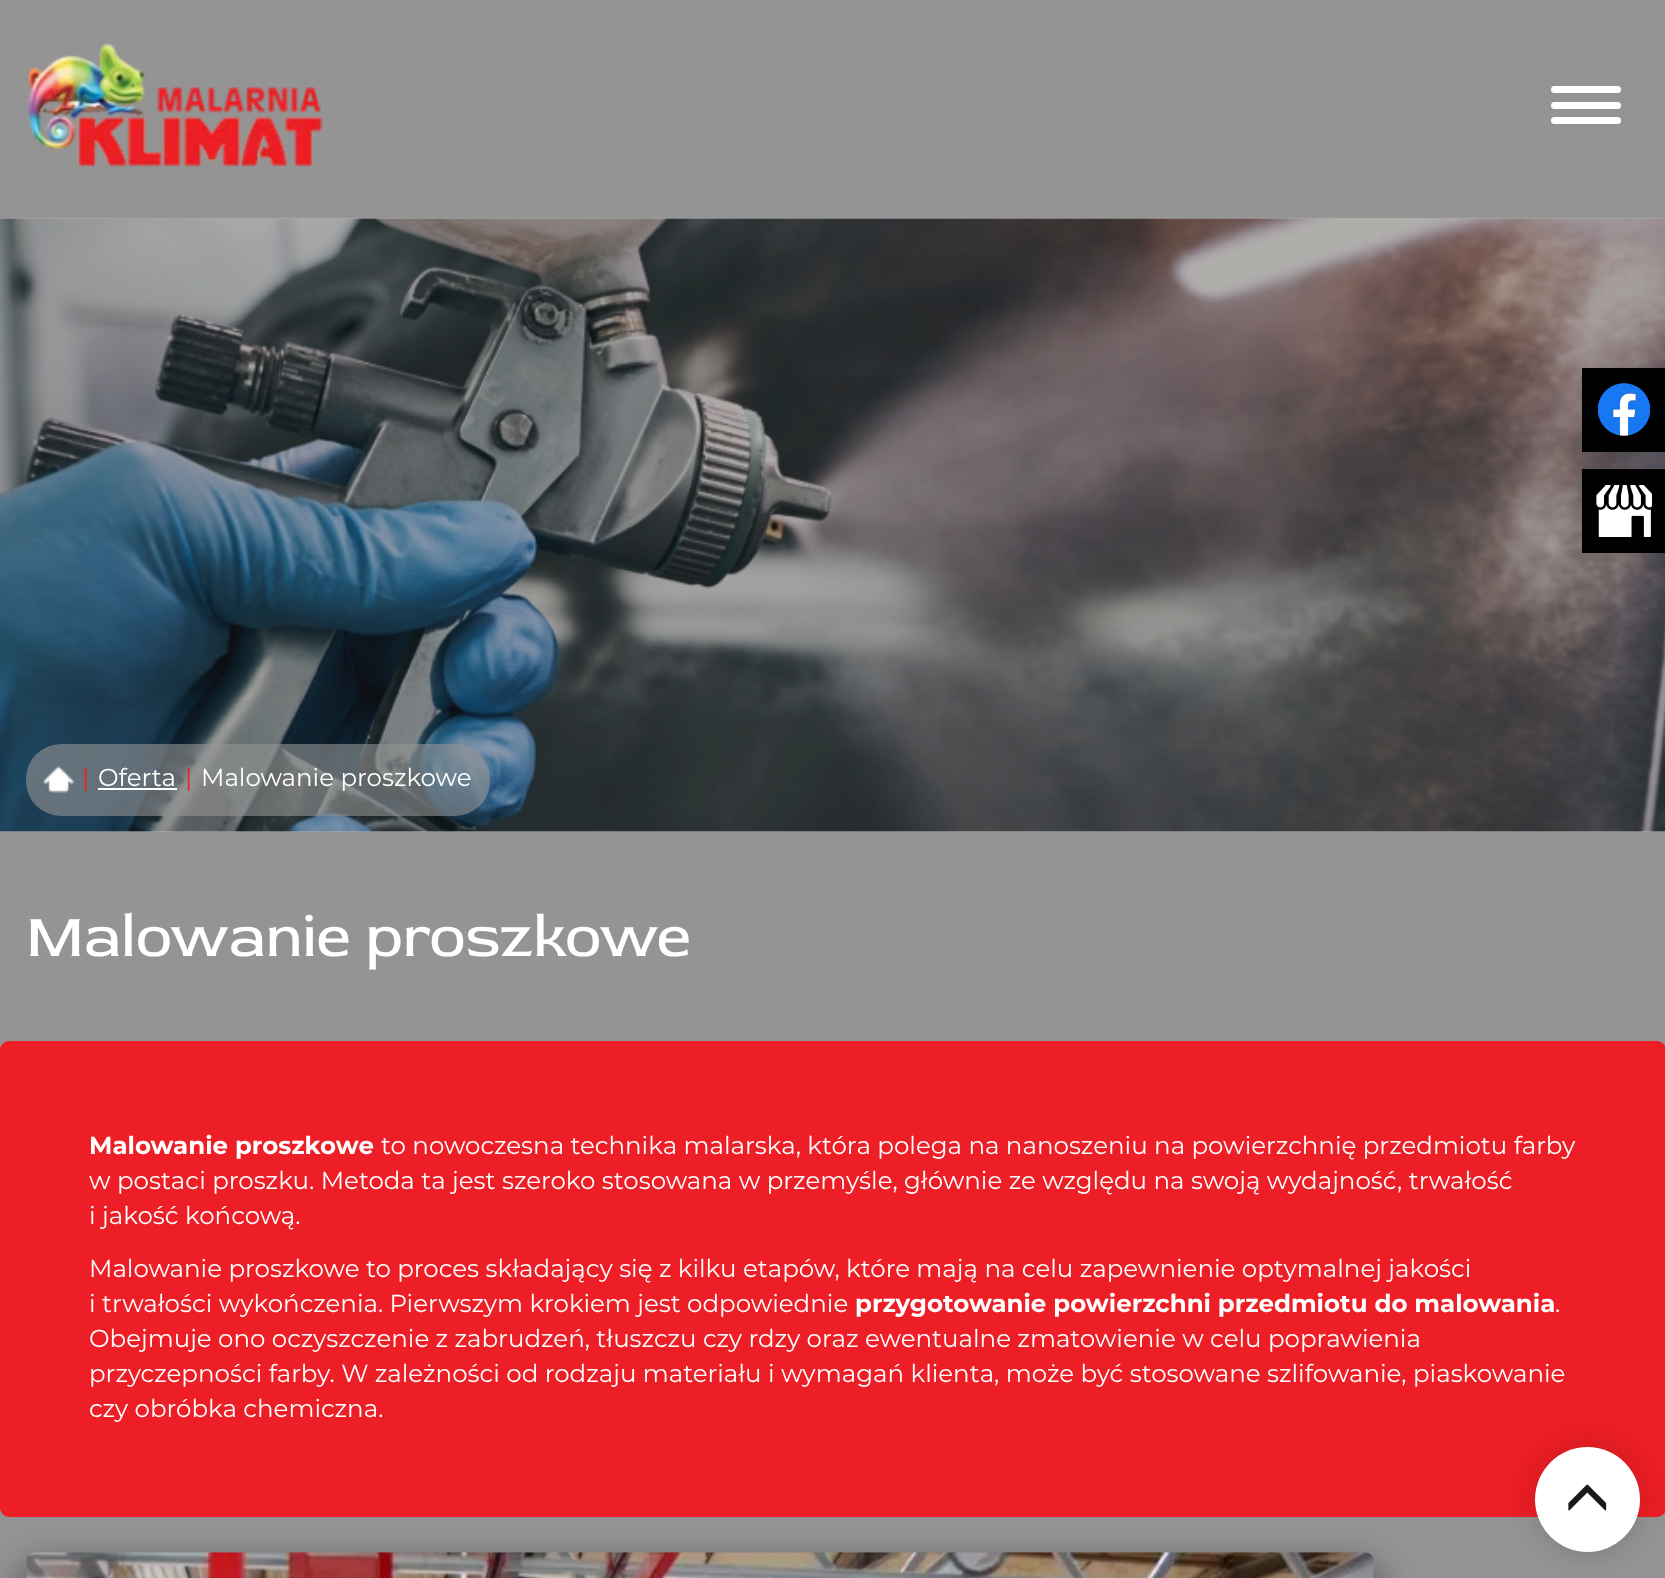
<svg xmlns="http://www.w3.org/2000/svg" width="1665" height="1578">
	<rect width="100%" height="100%" fill="#959494" />
	<image x="27" y="43" width="296" height="124" href="assets/img1.png" />
	<rect x="1551" y="86" width="70" height="7" rx="3.5" fill="#FFFFFF" />
	<rect x="1551" y="102" width="70" height="7" rx="3.5" fill="#FFFFFF" />
	<rect x="1551" y="117" width="70" height="7" rx="3.5" fill="#FFFFFF" />
	<image x="0" y="218" width="1665" height="614" href="assets/img2.png" />
	<rect x="26" y="744" width="464" height="72" rx="35" fill="#959494" fill-opacity="0.6" />
	<image x="43" y="766" width="31" height="27" href="assets/img3.png" />
	<text x="82" y="786" font-family="Montserrat" font-size="24.5" fill="#ED1E25">|</text>
	<text x="98" y="786" font-family="Montserrat" font-size="24.5" fill="#FFFFFF">Oferta</text>
	<rect x="98" y="788" width="79" height="2" fill="#FFFFFF" />
	<text x="185" y="786" font-family="Montserrat" font-size="24.5" fill="#ED1E25">|</text>
	<text x="201" y="786" font-family="Montserrat" font-size="24.5" fill="#FFFFFF">Malowanie proszkowe</text>
	<text x="26" y="956" font-family="Red Rose" font-size="61.25" fill="#FFFFFF">Malowanie proszkowe</text>
	<rect x="1" y="1042" width="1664" height="474" rx="8" fill="#ED1E25" stroke="#ED1E25" stroke-width="2" />
	<text x="89" y="1154" font-family="Montserrat" font-size="24.5" font-weight="700" fill="#FFFFFF">Malowanie proszkowe</text>
	<g font-family="Montserrat" font-size="24.5" fill="#FFFFFF">
		<text x="381" y="1154">to nowoczesna technika malarska, która polega na nanoszeniu na powierzchnię przedmiotu farby</text>
		<text x="89" y="1189">w postaci proszku. Metoda ta jest szeroko stosowana w przemyśle, głównie ze względu na swoją wydajność, trwałość</text>
		<text x="89" y="1224">i jakość końcową.</text>
		<text x="89" y="1277">Malowanie proszkowe to proces składający się z kilku etapów, które mają na celu zapewnienie optymalnej jakości</text>
		<text x="89" y="1312">i trwałości wykończenia. Pierwszym krokiem jest odpowiednie</text>
	</g>
	<text x="855" y="1312" font-family="Montserrat" font-size="24.5" font-weight="700" fill="#FFFFFF">przygotowanie powierzchni przedmiotu do malowania</text>
	<g font-family="Montserrat" font-size="24.5" fill="#FFFFFF">
		<text x="1555" y="1312">.</text>
		<text x="89" y="1347">Obejmuje ono oczyszczenie z zabrudzeń, tłuszczu czy rdzy oraz ewentualne zmatowienie w celu poprawienia</text>
		<text x="89" y="1382">przyczepności farby. W zależności od rodzaju materiału i wymagań klienta, może być stosowane szlifowanie, piaskowanie</text>
		<text x="89" y="1417">czy obróbka chemiczna.</text>
	</g>
	<rect x="26" y="1573" width="1348" height="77" rx="9" fill="#000000" fill-opacity="0.75" filter="blur(21px)" />
	<image x="26" y="1552" width="1348" height="26" href="assets/img4.png" />
	<rect x="1582" y="368" width="83" height="84" fill="#000000" />
	<image x="1598" y="383" width="52" height="53" href="assets/img5.png" />
	<rect x="1582" y="469" width="83" height="84" fill="#000000" />
	<image x="1596" y="485" width="56" height="52" href="assets/img6.png" />
	<rect x="1533" y="1446" width="109" height="108" rx="54" fill="#000000" fill-opacity="0.15" filter="blur(14px)" />
	<circle cx="1587.5" cy="1499.5" r="52.5" fill="#FFFFFF" />
	<image x="1568" y="1484" width="39" height="27" href="assets/img7.png" />
</svg>
